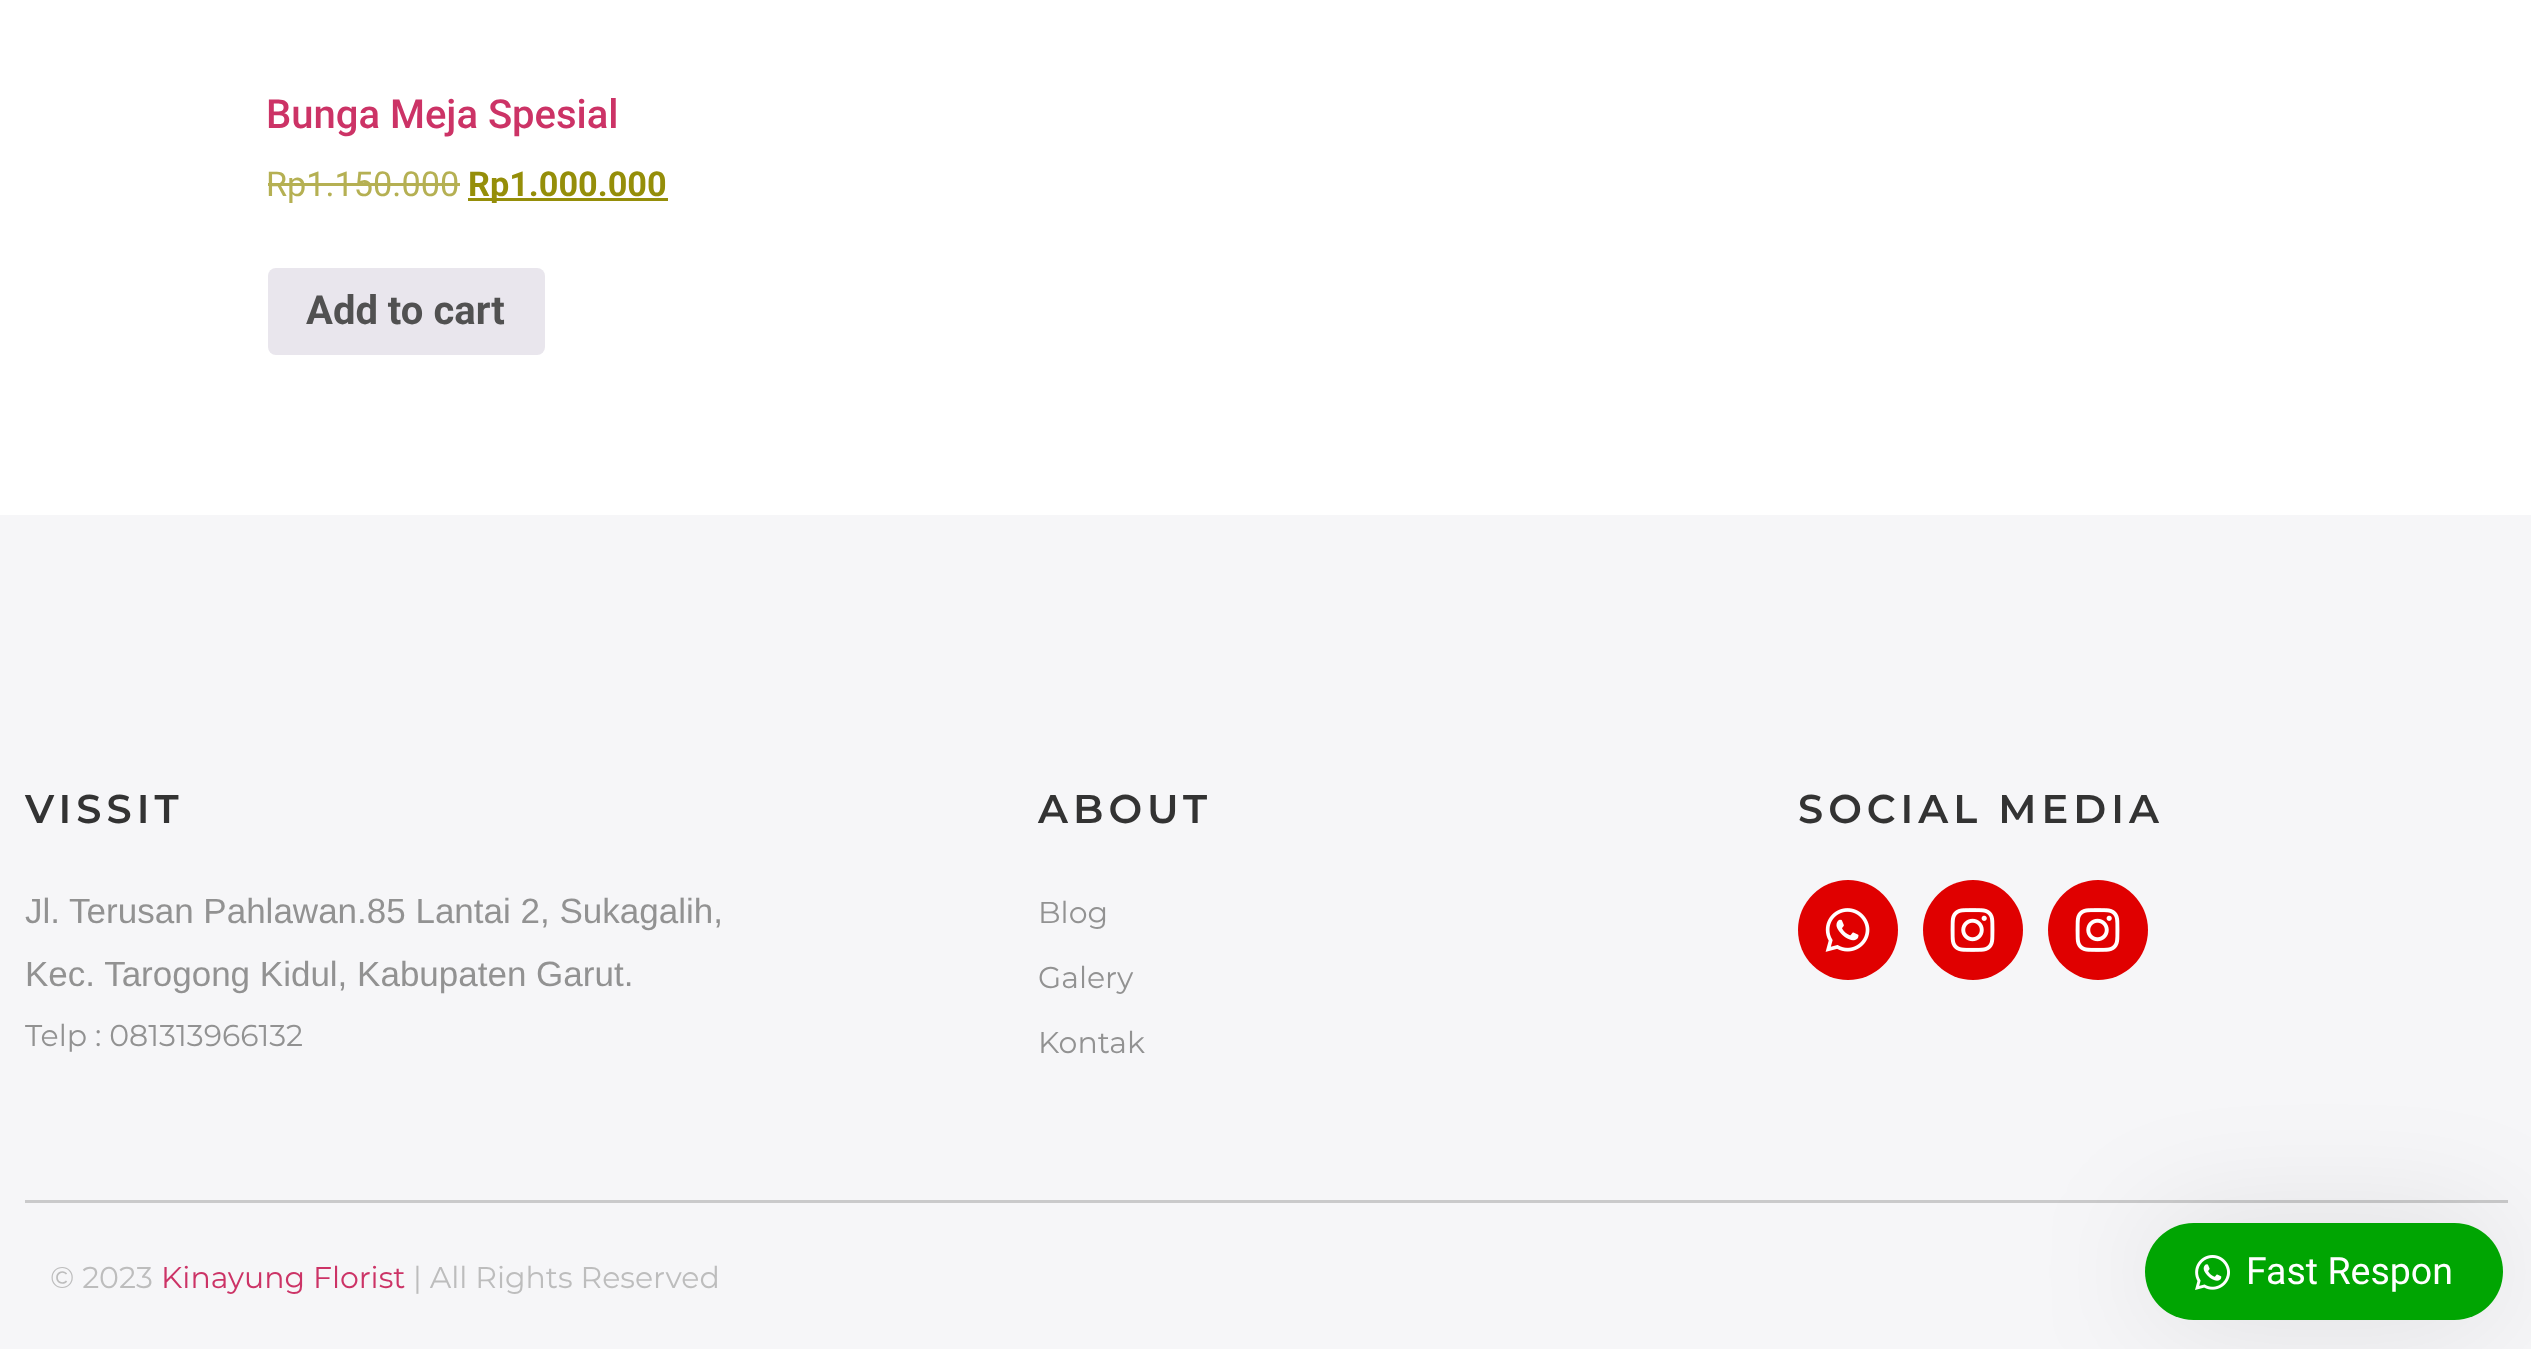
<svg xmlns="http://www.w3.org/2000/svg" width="2531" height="1349">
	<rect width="100%" height="100%" fill="#FFFFFF" />
	<text x="266" y="128" font-family="Roboto" font-size="40" font-weight="500" fill="#CC3366">Bunga Meja Spesial</text>
	<text x="266" y="196" font-family="Roboto" font-size="34.25" fill="#B5B053">Rp1.150.000</text>
	<rect x="268" y="183" width="192" height="3" fill="#B5B053" />
	<rect x="468" y="198" width="200" height="3" fill="#958E09" />
	<text x="468" y="196" font-family="Roboto" font-size="34.25" font-weight="700" fill="#958E09">Rp1.000.000</text>
	<rect x="268" y="268" width="277" height="87" rx="8" fill="#E9E6ED" />
	<text x="306" y="324" font-family="Roboto" font-size="40" font-weight="700" fill="#515151">Add to cart</text>
	<rect x="0" y="515" width="2531" height="834" fill="#F6F6F8" />
	<text x="25" y="823" font-family="Montserrat" font-size="40" font-weight="600" letter-spacing="5" fill="#333333">VISSIT</text>
	<g font-family="Liberation Sans" font-size="35" fill="#929292">
		<text x="25" y="923">Jl. Terusan Pahlawan.85 Lantai 2, Sukagalih,</text>
		<text x="25" y="986">Kec. Tarogong Kidul, Kabupaten Garut.</text>
	</g>
	<text x="25" y="1046" font-family="Montserrat" font-size="30" fill="#929292">Telp : 081313966132</text>
	<text x="1038" y="823" font-family="Montserrat" font-size="40" font-weight="600" letter-spacing="5" fill="#333333">ABOUT</text>
	<g font-family="Montserrat" font-size="30" fill="#929292">
		<text x="1038" y="923">Blog</text>
		<text x="1038" y="988">Galery</text>
		<text x="1038" y="1053">Kontak</text>
	</g>
	<text x="1798" y="823" font-family="Montserrat" font-size="40" font-weight="600" letter-spacing="5" fill="#333333">SOCIAL MEDIA</text>
	<circle cx="1848" cy="930" r="50" fill="#E00000" />
	<image x="1825" y="908" width="45" height="44" href="assets/img1.png" />
	<circle cx="1973" cy="930" r="50" fill="#E00000" />
	<image x="1950" y="908" width="45" height="44" href="assets/img2.png" />
	<circle cx="2098" cy="930" r="50" fill="#E00000" />
	<image x="2075" y="908" width="45" height="44" href="assets/img2.png" />
	<rect x="25" y="1200" width="2483" height="3" fill="#CACACB" />
	<text x="50" y="1288" font-family="Montserrat" font-size="30" fill="#BDBDBD">© 2023</text>
	<text x="161" y="1288" font-family="Montserrat" font-size="30" fill="#CC3366">Kinayung Florist</text>
	<text x="413" y="1288" font-family="Montserrat" font-size="30" fill="#BDBDBD">| All Rights Reserved</text>
	<rect x="2145" y="1223" width="358" height="97" rx="48.5" fill="#000000" fill-opacity="0.1" filter="blur(62.5px)" />
	<rect x="2145" y="1223" width="358" height="97" rx="48.5" fill="#00A502" />
	<image x="2195" y="1255" width="35" height="35" href="assets/img3.png" />
	<text x="2246" y="1284" font-family="Roboto" font-size="37.5" fill="#FFFFFF">Fast Respon</text>
</svg>
